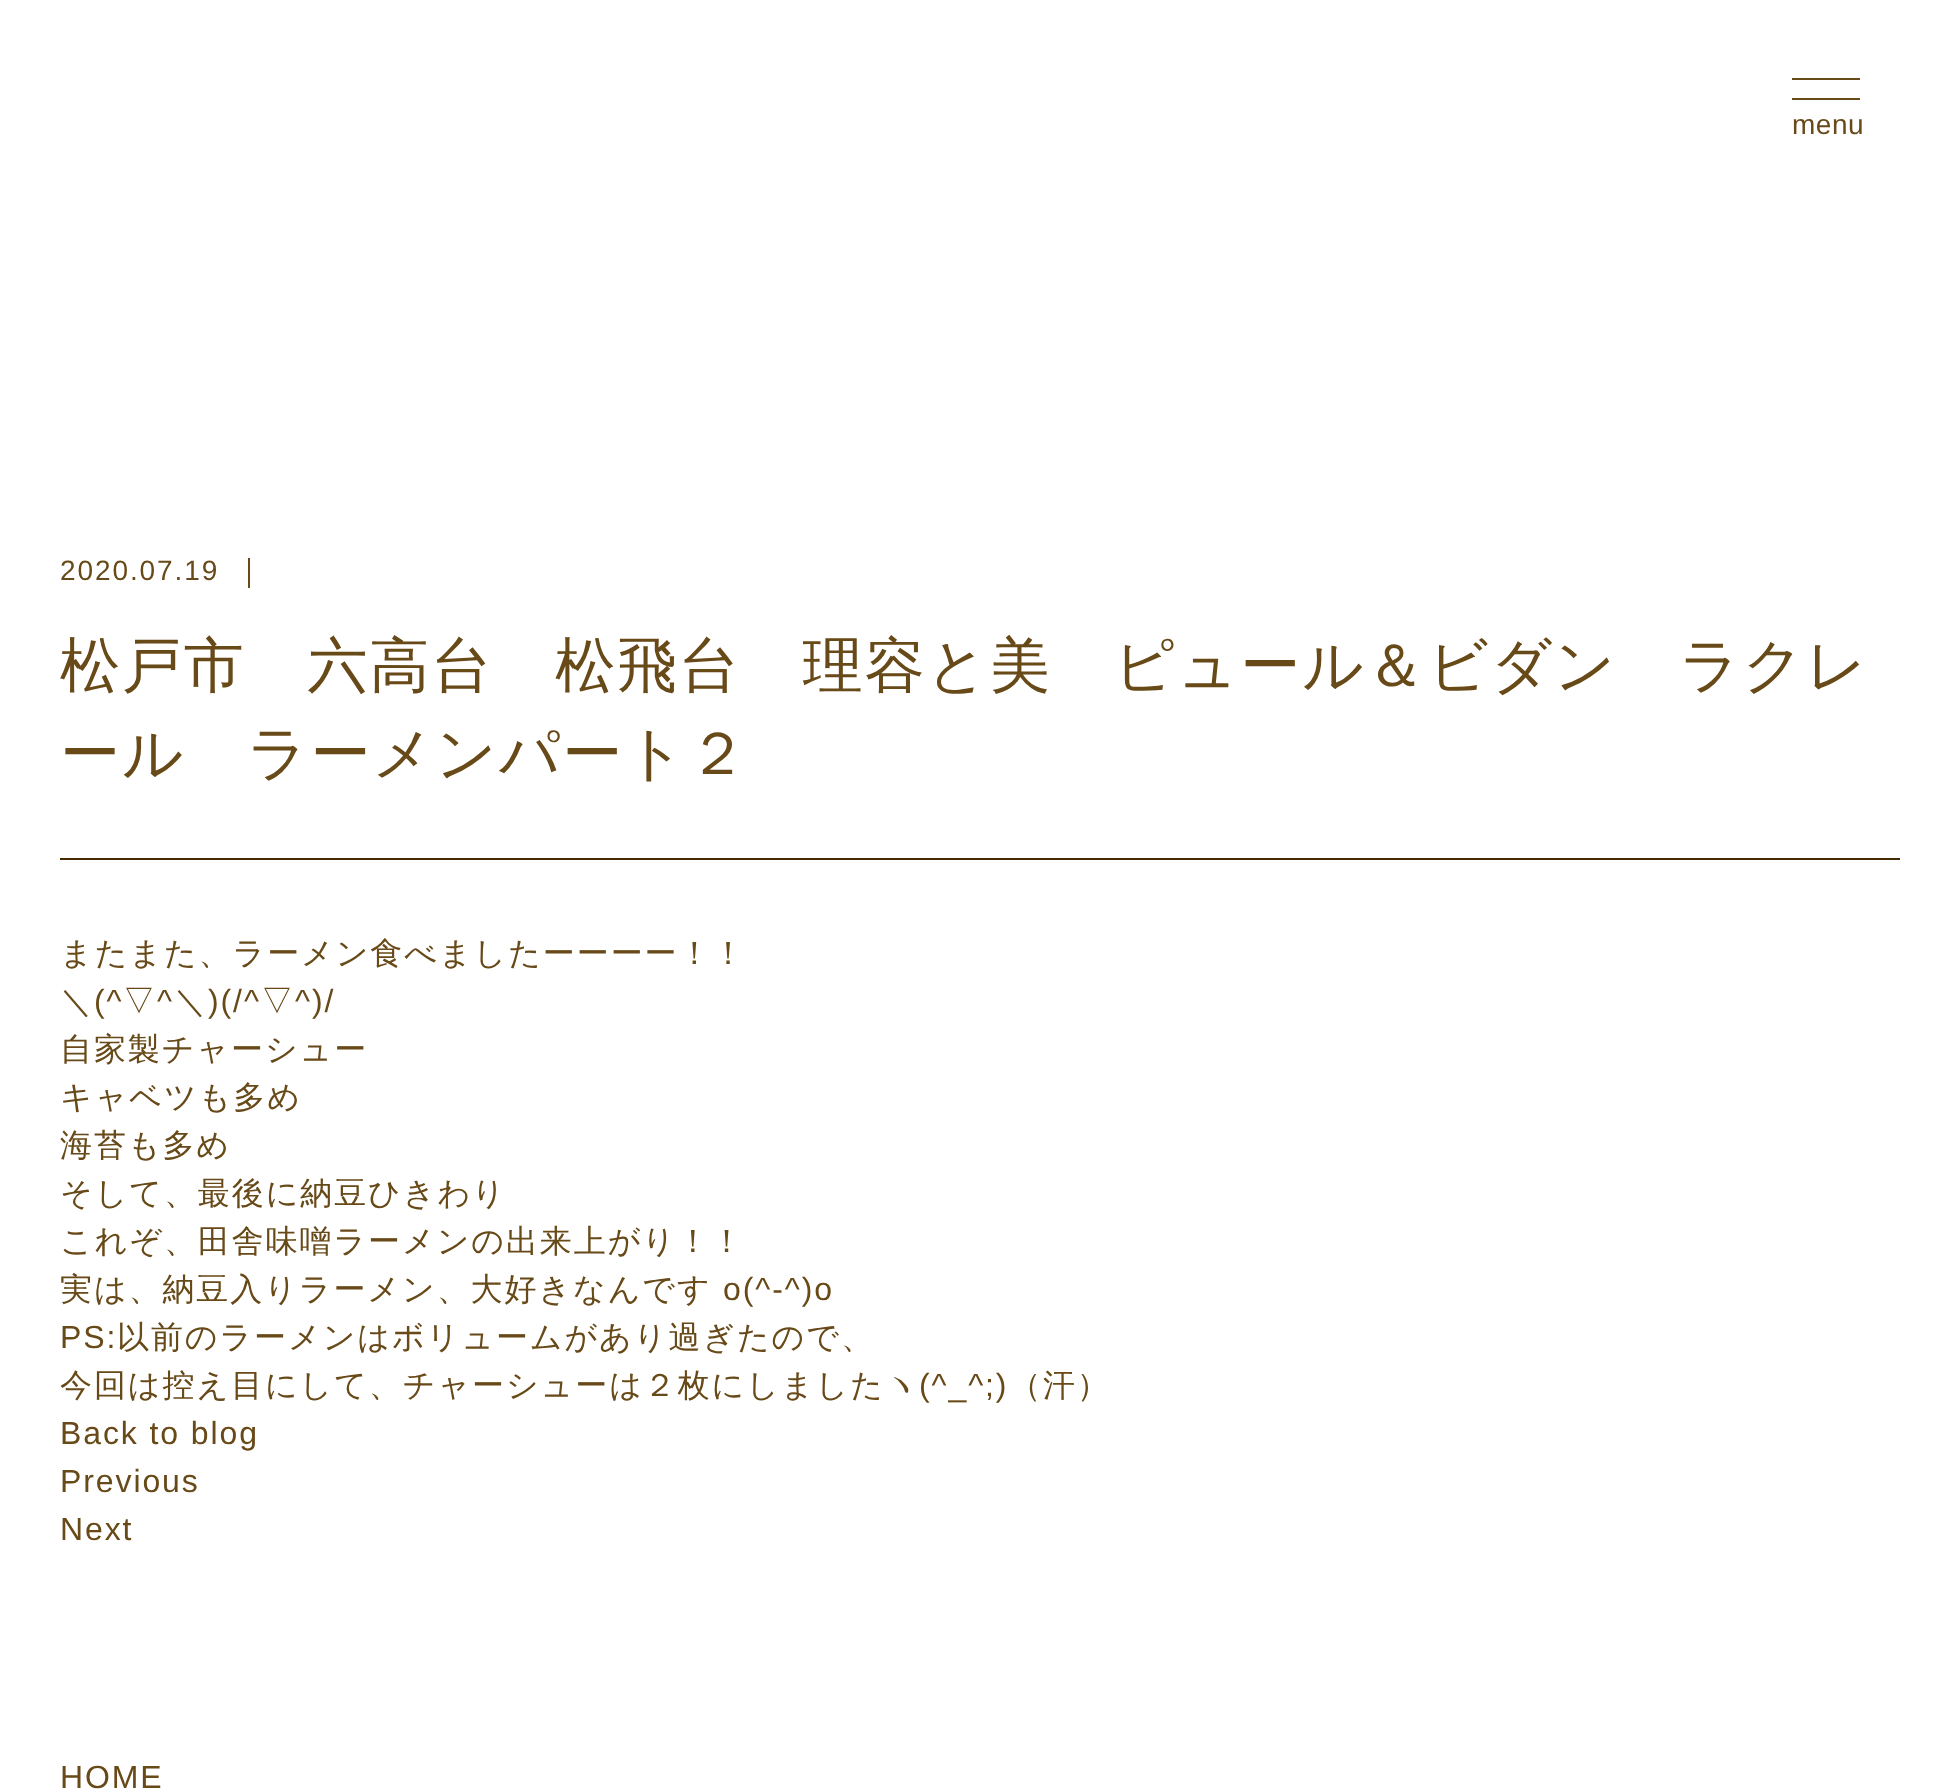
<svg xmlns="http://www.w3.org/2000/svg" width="1960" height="1789">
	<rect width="100%" height="100%" fill="#FFFFFF" />
	<rect x="1792" y="78" width="68" height="2" fill="#684918" />
	<rect x="1792" y="98" width="68" height="2" fill="#684918" />
	<text x="1792" y="134" font-family="Liberation Sans" font-size="28" letter-spacing="0.5" fill="#684918">menu</text>
	<text x="60" y="580" font-family="Liberation Sans" font-size="28" letter-spacing="1.9" fill="#684918">2020.07.19</text>
	<rect x="248" y="558" width="2" height="30" fill="#684918" />
	<rect x="60" y="858" width="1840" height="2" fill="#452B02" />
	<g font-family="WenQuanYi Zen Hei" font-size="60" font-weight="500" letter-spacing="1.9" fill="#684918">
		<text x="60" y="686">松戸市　六高台　松飛台　理容と美　ピュール＆ビダン　ラクレ</text>
		<text x="60" y="774">ール　ラーメンパート２</text>
	</g>
	<g font-family="WenQuanYi Zen Hei" font-size="32" font-weight="500" letter-spacing="1.9" fill="#684918">
		<text x="60" y="964">またまた、ラーメン食べましたーーーー！！</text>
		<text x="60" y="1012">＼</text>
	</g>
	<text x="94" y="1012" font-family="Liberation Sans" font-size="32" letter-spacing="1.9" fill="#684918">(^</text>
	<text x="123" y="1012" font-family="WenQuanYi Zen Hei" font-size="32" font-weight="500" letter-spacing="1.9" fill="#684918">▽</text>
	<text x="157" y="1012" font-family="Liberation Sans" font-size="32" letter-spacing="1.9" fill="#684918">^</text>
	<text x="174" y="1012" font-family="WenQuanYi Zen Hei" font-size="32" font-weight="500" letter-spacing="1.9" fill="#684918">＼</text>
	<text x="208" y="1012" font-family="Liberation Sans" font-size="32" letter-spacing="1.9" fill="#684918">)(/^</text>
	<text x="261" y="1012" font-family="WenQuanYi Zen Hei" font-size="32" font-weight="500" letter-spacing="1.9" fill="#684918">▽</text>
	<text x="295" y="1012" font-family="Liberation Sans" font-size="32" letter-spacing="1.9" fill="#684918">^)/</text>
	<g font-family="WenQuanYi Zen Hei" font-size="32" font-weight="500" letter-spacing="1.9" fill="#684918">
		<text x="60" y="1060">自家製チャーシュー</text>
		<text x="60" y="1108">キャベツも多め</text>
		<text x="60" y="1156">海苔も多め</text>
		<text x="60" y="1204">そして、最後に納豆ひきわり</text>
		<text x="60" y="1252">これぞ、田舎味噌ラーメンの出来上がり！！</text>
		<text x="60" y="1300">実は、納豆入りラーメン、大好きなんです</text>
	</g>
	<g font-family="Liberation Sans" font-size="32" letter-spacing="1.9" fill="#684918">
		<text x="723" y="1300">o(^-^)o</text>
		<text x="60" y="1348">PS:</text>
	</g>
	<g font-family="WenQuanYi Zen Hei" font-size="32" font-weight="500" letter-spacing="1.9" fill="#684918">
		<text x="117" y="1348">以前のラーメンはボリュームがあり過ぎたので、</text>
		<text x="60" y="1396">今回は控え目にして、チャーシューは２枚にしましたヽ</text>
	</g>
	<text x="919" y="1396" font-family="Liberation Sans" font-size="32" letter-spacing="1.9" fill="#684918">(^_^;)</text>
	<text x="1009" y="1396" font-family="WenQuanYi Zen Hei" font-size="32" font-weight="500" letter-spacing="1.9" fill="#684918">（汗）</text>
	<g font-family="Liberation Sans" font-size="32" letter-spacing="1.9" fill="#684918">
		<text x="60" y="1444">Back to blog</text>
		<text x="60" y="1492">Previous</text>
		<text x="60" y="1540">Next</text>
		<text x="60" y="1788">HOME</text>
	</g>
</svg>
